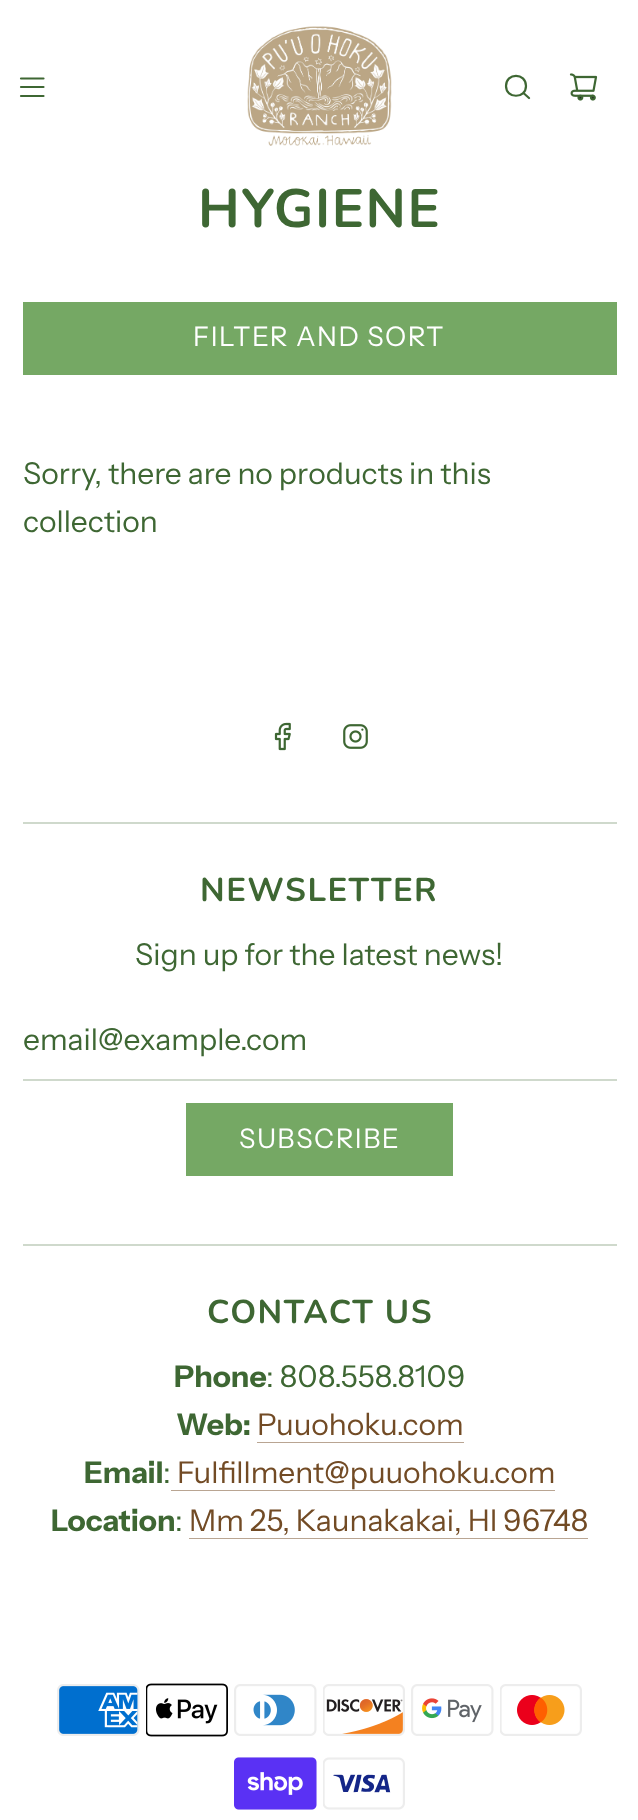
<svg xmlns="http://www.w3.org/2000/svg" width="638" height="1820">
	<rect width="100%" height="100%" fill="#FFFFFF" />
	<path d="M21 78.5H43.5M21 87H43.5M21 96H43.5" fill="none" stroke="#3E6733" stroke-width="2.2" stroke-linecap="round" stroke-linejoin="round" />
	<image x="247" y="26" width="145" height="120" href="assets/img1.png" />
	<path d="M524 93.5L529 98M506 86C506 99 526 99 526 86C526 72.5 506 72.5 506 86Z" fill="none" stroke="#3E6733" stroke-width="2.2" stroke-linecap="round" stroke-linejoin="round" />
	<image x="569" y="73" width="29" height="28" href="assets/img2.png" />
	<text x="198" y="227" font-family="Nunito" font-size="54" font-weight="700" letter-spacing="1.5" fill="#3E6733">HYGIENE</text>
	<rect x="23" y="302" width="594" height="73" fill="#75A864" />
	<text x="193" y="346" font-family="Instrument Sans" font-size="27" letter-spacing="1.5" fill="#FFFFFF">FILTER AND SORT</text>
	<g font-family="Instrument Sans" font-size="30" fill="#3E6733">
		<text x="23" y="484">Sorry, there are no products in this</text>
		<text x="23" y="532">collection</text>
	</g>
	<image x="274" y="722" width="17" height="29" href="assets/img3.png" />
	<image x="343" y="724" width="25" height="25" href="assets/img4.png" />
	<rect x="23" y="822" width="594" height="2" fill="#CFD9CC" />
	<text x="200" y="901" font-family="Nunito" font-size="33" font-weight="700" letter-spacing="1.5" fill="#3E6733">NEWSLETTER</text>
	<text x="135" y="965" font-family="Instrument Sans" font-size="30" fill="#3E6733">Sign up for the latest news!</text>
	<rect x="23" y="1079" width="594" height="2" fill="#CFD9CC" />
	<text x="23" y="1050" font-family="Instrument Sans" font-size="30" fill="#3E6733">email@example.com</text>
	<rect x="186" y="1103" width="267" height="73" fill="#75A864" />
	<text x="239" y="1148" font-family="Instrument Sans" font-size="27" letter-spacing="1.5" fill="#FFFFFF">SUBSCRIBE</text>
	<rect x="23" y="1244" width="594" height="2" fill="#CFD9CC" />
	<text x="207" y="1323" font-family="Nunito" font-size="33" font-weight="700" letter-spacing="1.5" fill="#3E6733">CONTACT US</text>
	<text x="174" y="1387" font-family="Instrument Sans" font-size="30" font-weight="700" fill="#3E6733">Phone</text>
	<text x="266" y="1387" font-family="Instrument Sans" font-size="30" fill="#3E6733">: 808.558.8109</text>
	<text x="176" y="1435" font-family="Instrument Sans" font-size="30" font-weight="700" fill="#3E6733">Web:</text>
	<text x="257" y="1435" font-family="Instrument Sans" font-size="30" fill="#724B25">Puuohoku.com</text>
	<rect x="257" y="1442" width="207" height="1" fill="#B9A592" />
	<text x="84" y="1483" font-family="Instrument Sans" font-size="30" font-weight="700" fill="#3E6733">Email</text>
	<text x="163" y="1483" font-family="Instrument Sans" font-size="30" fill="#3E6733">:</text>
	<text x="177" y="1483" font-family="Instrument Sans" font-size="30" fill="#724B25">Fulfillment@puuohoku.com</text>
	<rect x="171" y="1490" width="384" height="1" fill="#B9A592" />
	<text x="51" y="1531" font-family="Instrument Sans" font-size="30" font-weight="700" fill="#3E6733">Location</text>
	<text x="175" y="1531" font-family="Instrument Sans" font-size="30" fill="#3E6733">:</text>
	<text x="189" y="1531" font-family="Instrument Sans" font-size="30" fill="#724B25">Mm 25, Kaunakakai, HI 96748</text>
	<rect x="189" y="1538" width="399" height="1" fill="#B9A592" />
	<image x="57" y="1684" width="83" height="52" href="assets/img5.png" />
	<image x="146" y="1683" width="82" height="54" href="assets/img6.png" />
	<image x="234" y="1684" width="83" height="52" href="assets/img7.png" />
	<image x="323" y="1684" width="82" height="52" href="assets/img8.png" />
	<image x="411" y="1684" width="83" height="52" href="assets/img9.png" />
	<image x="500" y="1684" width="82" height="52" href="assets/img10.png" />
	<image x="234" y="1757" width="83" height="53" href="assets/img11.png" />
	<image x="323" y="1757" width="82" height="53" href="assets/img12.png" />
</svg>
